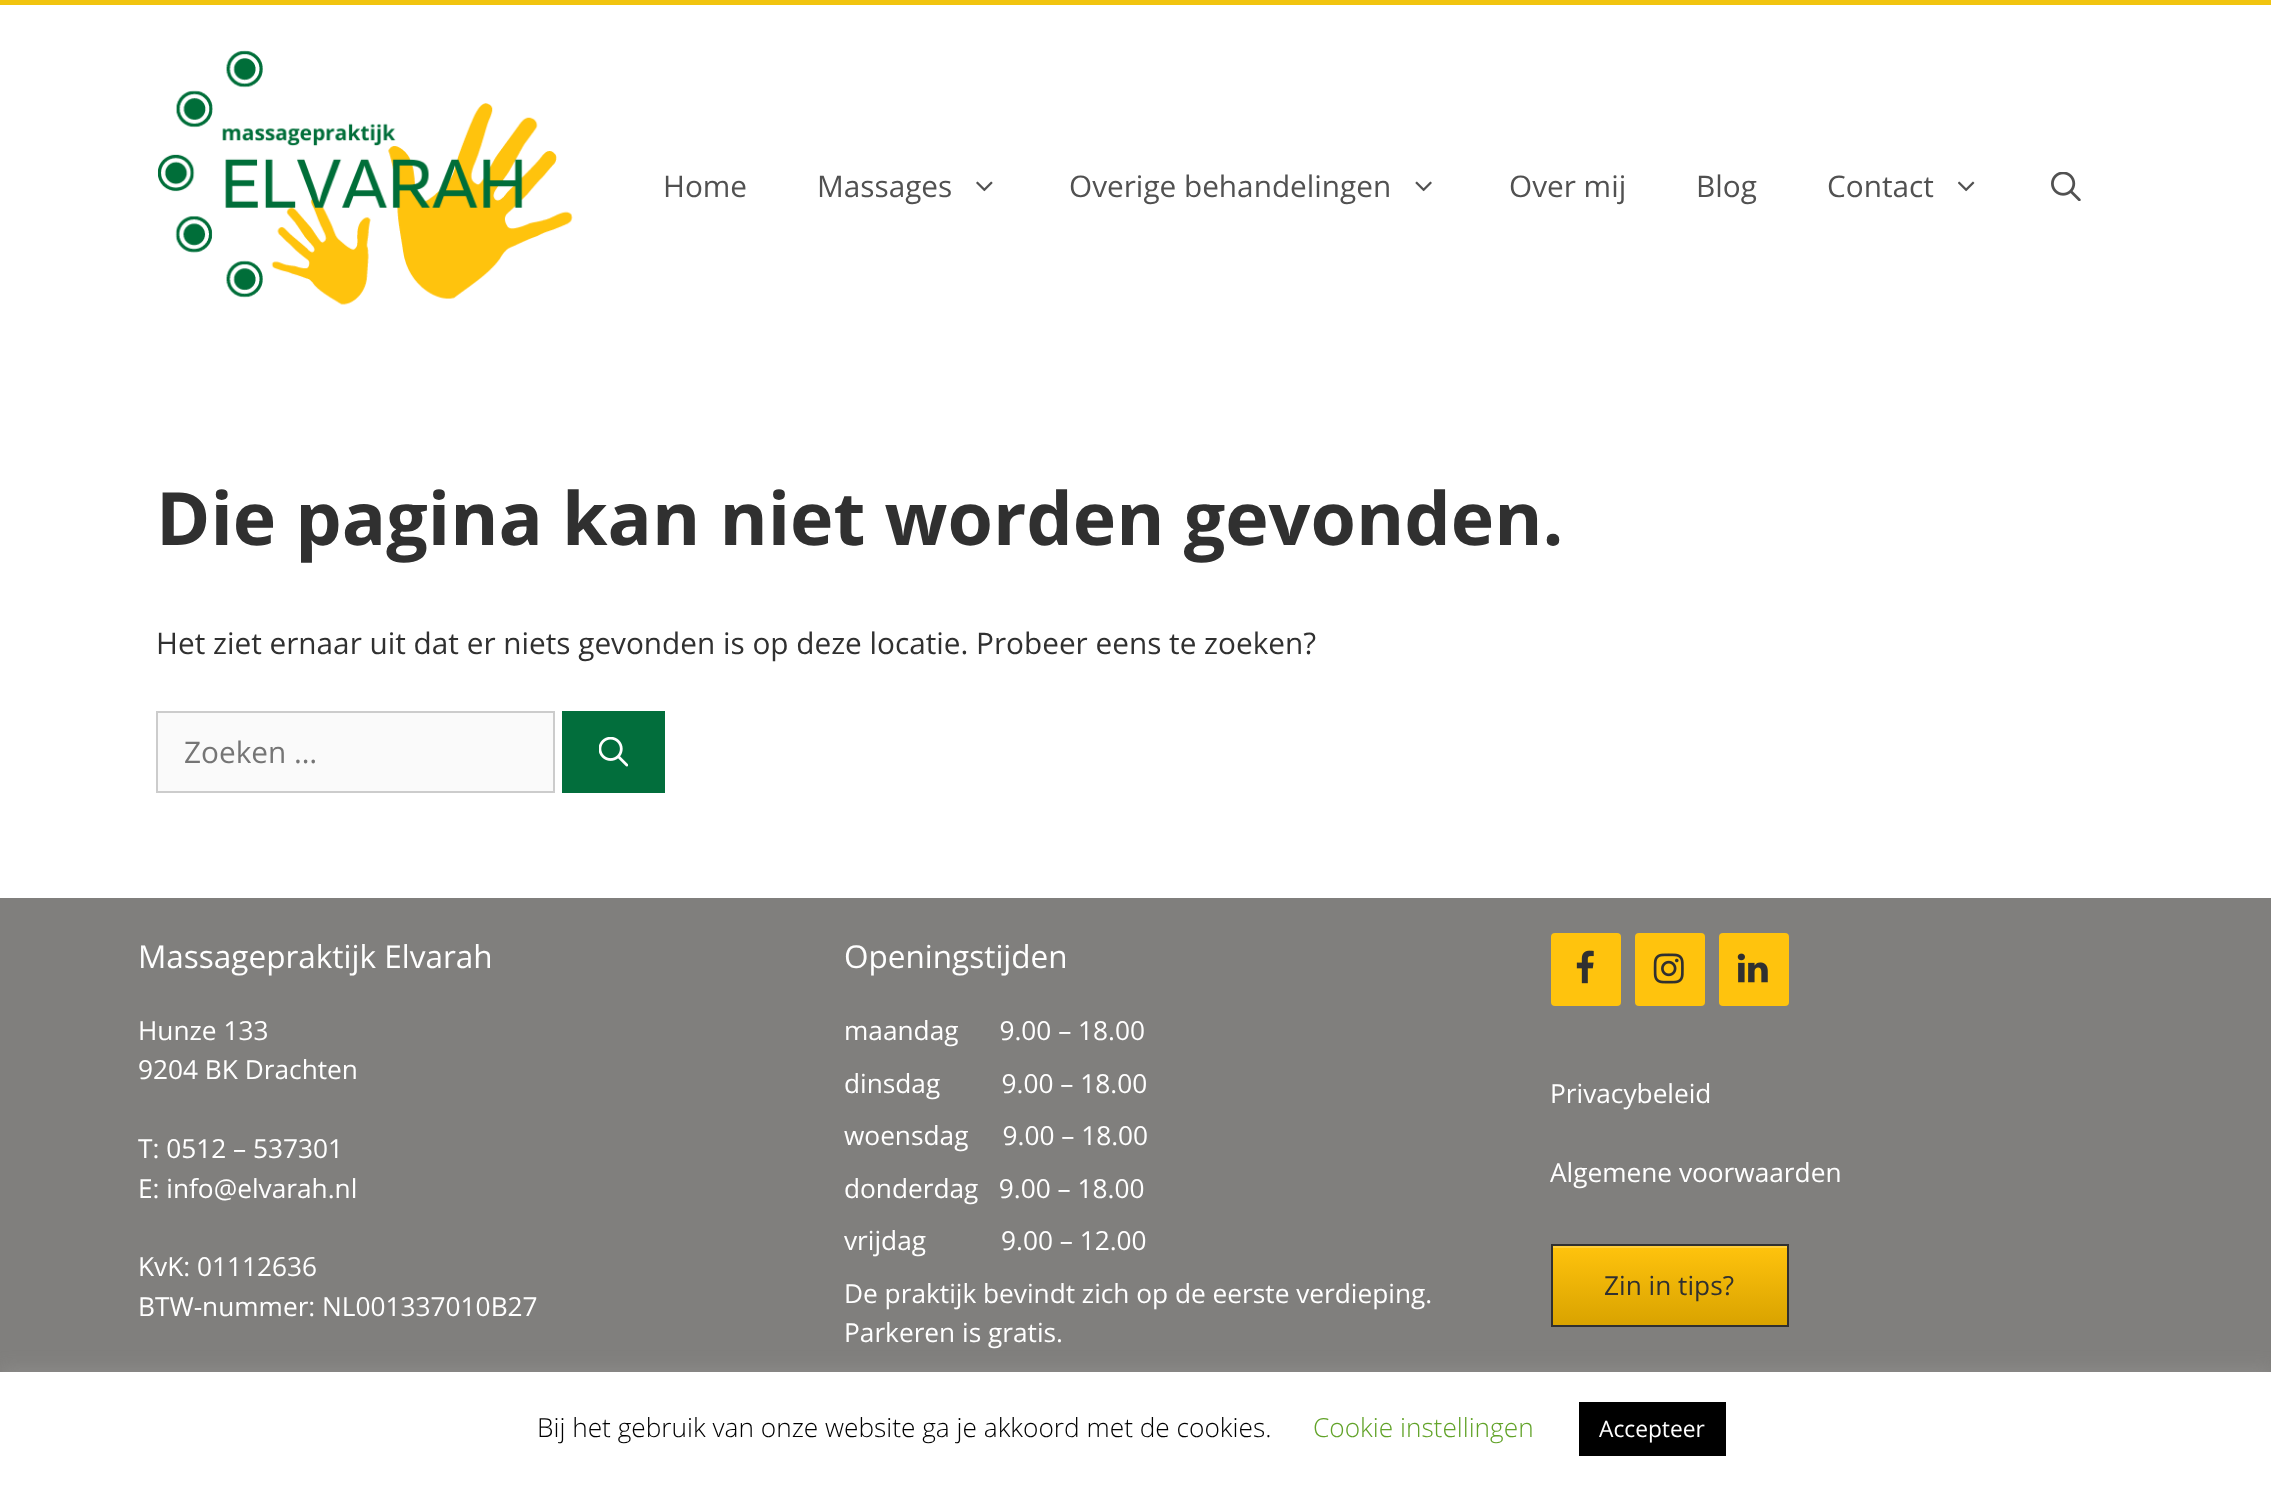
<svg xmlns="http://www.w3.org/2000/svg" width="2271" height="1485">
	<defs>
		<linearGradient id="g1" gradientUnits="userSpaceOnUse" x1="1552" y1="1325" x2="1552" y2="1246"><stop offset="0" stop-color="#D9A300" /><stop offset="1" stop-color="#FFC30D" /></linearGradient>
	</defs>
	<rect width="100%" height="100%" fill="#FFFFFF" />
	<rect x="0" y="0" width="2271" height="5" fill="#F1C40F" />
	<image x="157" y="50" width="416" height="255" href="assets/img1.png" />
	<g font-family="Open Sans" font-size="29.75" fill="#515151">
		<text x="663" y="197">Home</text>
		<text x="817" y="197">Massages</text>
	</g>
	<image x="976" y="181" width="17" height="11" href="assets/img2.png" />
	<text x="1069" y="197" font-family="Open Sans" font-size="29.75" fill="#515151">Overige behandelingen</text>
	<image x="1415" y="181" width="17" height="11" href="assets/img3.png" />
	<g font-family="Open Sans" font-size="29.75" fill="#515151">
		<text x="1509" y="197">Over mij</text>
		<text x="1696" y="197">Blog</text>
		<text x="1827" y="197">Contact</text>
	</g>
	<image x="1958" y="181" width="17" height="11" href="assets/img4.png" />
	<image x="2051" y="172" width="30" height="29" href="assets/img5.png" />
	<text x="156" y="545" font-family="Open Sans" font-size="73.5" font-weight="700" fill="#303030">Die pagina kan niet worden gevonden.</text>
	<text x="156" y="654" font-family="Open Sans" font-size="29.75" fill="#303030">Het ziet ernaar uit dat er niets gevonden is op deze locatie. Probeer eens te zoeken?</text>
	<rect x="157" y="712" width="397" height="80" fill="#FAFAFA" stroke="#CCCCCC" stroke-width="2" />
	<text x="184" y="763" font-family="Open Sans" font-size="29.75" fill="#757575">Zoeken …</text>
	<rect x="562" y="711" width="103" height="82" fill="#026E3C" />
	<image x="599" y="737" width="29" height="30" href="assets/img6.png" />
	<rect x="0" y="898" width="2271" height="474" fill="#807F7D" />
	<text x="138" y="968" font-family="Open Sans" font-size="31.5" fill="#FFFFFF">Massagepraktijk Elvarah</text>
	<g font-family="Open Sans" font-size="26.25" fill="#FFFFFF">
		<text x="138" y="1040">Hunze 133</text>
		<text x="138" y="1079">9204 BK Drachten</text>
		<text x="138" y="1158">T: 0512 – 537301</text>
		<text x="138" y="1198">E: info@elvarah.nl</text>
		<text x="138" y="1276">KvK: 01112636</text>
		<text x="138" y="1316">BTW-nummer: NL001337010B27</text>
	</g>
	<text x="844" y="968" font-family="Open Sans" font-size="31.5" fill="#FFFFFF">Openingstijden</text>
	<g font-family="Open Sans" font-size="26.25" fill="#FFFFFF">
		<text x="844" y="1040" xml:space="preserve">maandag      9.00 – 18.00</text>
		<text x="844" y="1093" xml:space="preserve">dinsdag         9.00 – 18.00</text>
		<text x="844" y="1145" xml:space="preserve">woensdag     9.00 – 18.00</text>
		<text x="844" y="1198" xml:space="preserve">donderdag   9.00 – 18.00</text>
		<text x="844" y="1250" xml:space="preserve">vrijdag           9.00 – 12.00</text>
		<text x="844" y="1303">De praktijk bevindt zich op de eerste verdieping.</text>
		<text x="844" y="1342">Parkeren is gratis.</text>
	</g>
	<rect x="1551" y="933" width="70" height="73" rx="4" fill="#FFC30D" />
	<image x="1576" y="950" width="18" height="34" href="assets/img7.png" />
	<rect x="1635" y="933" width="70" height="73" rx="4" fill="#FFC30D" />
	<image x="1653" y="953" width="31" height="31" href="assets/img8.png" />
	<rect x="1719" y="933" width="70" height="73" rx="4" fill="#FFC30D" />
	<image x="1737" y="953" width="31" height="30" href="assets/img9.png" />
	<g font-family="Open Sans" font-size="26.25" fill="#FFFFFF">
		<text x="1550" y="1103">Privacybeleid</text>
		<text x="1550" y="1182">Algemene voorwaarden</text>
	</g>
	<rect x="1553" y="1248" width="234" height="77" fill="url(#g1)" />
	<rect x="1552" y="1246" width="235" height="2" fill="#FFCF3D" />
	<rect x="1552" y="1245" width="236" height="81" fill="none" stroke="#303030" stroke-width="2" />
	<text x="1604" y="1295" font-family="Open Sans" font-size="26.25" fill="#303030">Zin in tips?</text>
	<rect x="0" y="1370" width="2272" height="114" fill="#ACABAB" fill-opacity="0.3" filter="blur(9px)" />
	<rect x="0" y="1372" width="2271" height="113" fill="#FFFFFF" />
	<text x="537" y="1437" font-family="Open Sans" font-size="26.25" font-weight="300" fill="#000000">Bij het gebruik van onze website ga je akkoord met de cookies.</text>
	<text x="1313" y="1437" font-family="Open Sans" font-size="26.25" font-weight="300" fill="#62A329">Cookie instellingen</text>
	<rect x="1579" y="1402" width="147" height="54" fill="#000000" />
	<text x="1599" y="1437" font-family="Open Sans" font-size="22.75" fill="#FFFFFF">Accepteer</text>
</svg>
